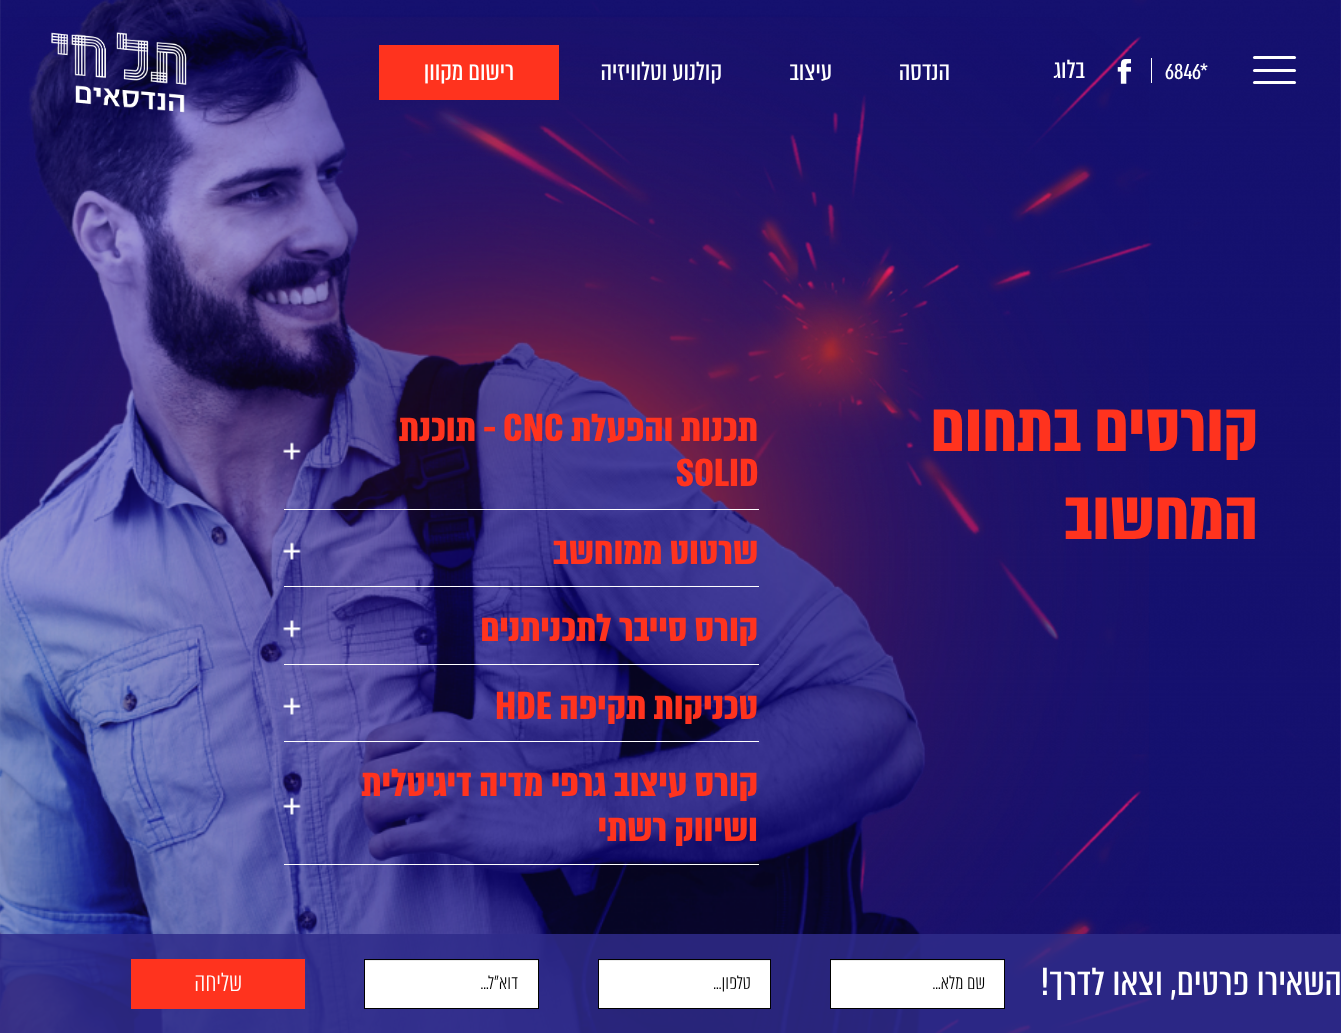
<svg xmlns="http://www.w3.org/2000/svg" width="1341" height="1033">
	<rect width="100%" height="100%" fill="#FFFFFF" />
	<image x="0" y="0" width="1341" height="1033" href="assets/img1.png" />
	<image x="0" y="0" width="1149" height="1033" href="assets/img2.png" />
	<rect x="1253" y="69" width="43" height="3" rx="1.5" fill="#FFFFFF" />
	<rect x="1253" y="56" width="43" height="3" rx="1.5" fill="#FFFFFF" />
	<rect x="1253" y="81" width="43" height="3" rx="1.5" fill="#FFFFFF" />
	<text x="1165" y="79" font-family="'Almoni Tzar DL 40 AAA'" font-size="25" fill="#FFFFFF">6846*</text>
	<rect x="1151" y="58" width="1" height="25" fill="#FFFFFF" />
	<image x="1117" y="59" width="14" height="25" href="assets/img3.png" />
	<g font-family="'Almoni Tzar DL 40 AAA'" font-size="30" direction="rtl" fill="#FFFFFF">
		<text x="1085" y="78">בלוג</text>
		<text x="950" y="80">הנדסה</text>
		<text x="832" y="80">עיצוב</text>
		<text x="722" y="80">קולנוע וטלוויזיה</text>
	</g>
	<rect x="379" y="45" width="180" height="55" fill="#FF331E" />
	<text x="514" y="80" font-family="'Almoni Tzar DL 40 AAA'" font-size="30" direction="rtl" fill="#FFFFFF">רישום מקוון</text>
	<image x="51" y="32" width="136" height="81" href="assets/img4.png" />
	<g font-family="'Almoni Tzar DL 40 AAA'" font-size="80" font-weight="700" direction="rtl" fill="#FF331E">
		<text x="1258" y="451">קורסים בתחום</text>
		<text x="1258" y="539">המחשוב</text>
	</g>
	<rect x="284" y="509" width="475" height="1" fill="#FFFFFF" />
	<text x="758" y="441" font-family="'Almoni Tzar DL 40 AAA'" font-size="45" font-weight="700" direction="rtl" fill="#FF331E">תכנות והפעלת</text>
	<text x="503" y="441" font-family="'Almoni Tzar DL 40 AAA'" font-size="45" font-weight="700" fill="#FF331E">CNC</text>
	<text x="496" y="441" font-family="'Almoni Tzar DL 40 AAA'" font-size="45" font-weight="700" direction="rtl" fill="#FF331E">- תוכנת</text>
	<image x="283" y="442" width="18" height="18" href="assets/img5.png" />
	<text x="676" y="486" font-family="'Almoni Tzar DL 40 AAA'" font-size="45" font-weight="700" fill="#FF331E">SOLID</text>
	<rect x="284" y="586" width="475" height="1" fill="#FFFFFF" />
	<text x="758" y="564" font-family="'Almoni Tzar DL 40 AAA'" font-size="45" font-weight="700" direction="rtl" fill="#FF331E">שרטוט ממוחשב</text>
	<image x="283" y="542" width="18" height="18" href="assets/img6.png" />
	<rect x="284" y="664" width="475" height="1" fill="#FFFFFF" />
	<text x="758" y="641" font-family="'Almoni Tzar DL 40 AAA'" font-size="45" font-weight="700" direction="rtl" fill="#FF331E">קורס סייבר לתכניתנים</text>
	<image x="283" y="620" width="18" height="18" href="assets/img7.png" />
	<rect x="284" y="741" width="475" height="1" fill="#FFFFFF" />
	<text x="758" y="719" font-family="'Almoni Tzar DL 40 AAA'" font-size="45" font-weight="700" direction="rtl" fill="#FF331E">טכניקות תקיפה</text>
	<text x="495" y="719" font-family="'Almoni Tzar DL 40 AAA'" font-size="45" font-weight="700" fill="#FF331E">HDE</text>
	<image x="283" y="697" width="18" height="18" href="assets/img8.png" />
	<rect x="284" y="864" width="475" height="1" fill="#FFFFFF" />
	<text x="758" y="796" font-family="'Almoni Tzar DL 40 AAA'" font-size="45" font-weight="700" direction="rtl" fill="#FF331E">קורס עיצוב גרפי מדיה דיגיטלית</text>
	<image x="283" y="797" width="18" height="18" href="assets/img9.png" />
	<text x="758" y="841" font-family="'Almoni Tzar DL 40 AAA'" font-size="45" font-weight="700" direction="rtl" fill="#FF331E">ושיווק רשתי</text>
	<rect x="0" y="934" width="1341" height="99" fill="#2F2B89" fill-opacity="0.85" />
	<text x="1342" y="995" font-family="'Almoni Tzar DL 40 AAA'" font-size="45" direction="rtl" fill="#FFFFFF">השאירו פרטים, וצאו לדרך!</text>
	<rect x="831" y="961" width="173" height="47" fill="#FFFFFF" />
	<rect x="831" y="960" width="173" height="1" fill="#ECECEC" />
	<rect x="830.5" y="959.5" width="174" height="49" fill="none" stroke="#000000" />
	<text x="985" y="989" font-family="'Almoni Tzar DL 40 AAA'" font-size="22.5" font-weight="300" direction="rtl" fill="#000000">שם מלא...</text>
	<rect x="599" y="961" width="171" height="47" fill="#FFFFFF" />
	<rect x="599" y="960" width="171" height="1" fill="#ECECEC" />
	<rect x="598.5" y="959.5" width="172" height="49" fill="none" stroke="#000000" />
	<text x="751" y="989" font-family="'Almoni Tzar DL 40 AAA'" font-size="22.5" font-weight="300" direction="rtl" fill="#000000">טלפון...</text>
	<rect x="365" y="961" width="173" height="47" fill="#FFFFFF" />
	<rect x="365" y="960" width="173" height="1" fill="#ECECEC" />
	<rect x="364.5" y="959.5" width="174" height="49" fill="none" stroke="#000000" />
	<text x="518" y="989" font-family="'Almoni Tzar DL 40 AAA'" font-size="22.5" font-weight="300" direction="rtl" fill="#000000">דוא"ל...</text>
	<rect x="131" y="959" width="174" height="50" fill="#FF331E" />
	<text x="242" y="991" font-family="'Almoni Tzar DL 40 AAA'" font-size="30" font-weight="300" direction="rtl" fill="#FFFFFF">שליחה</text>
</svg>
